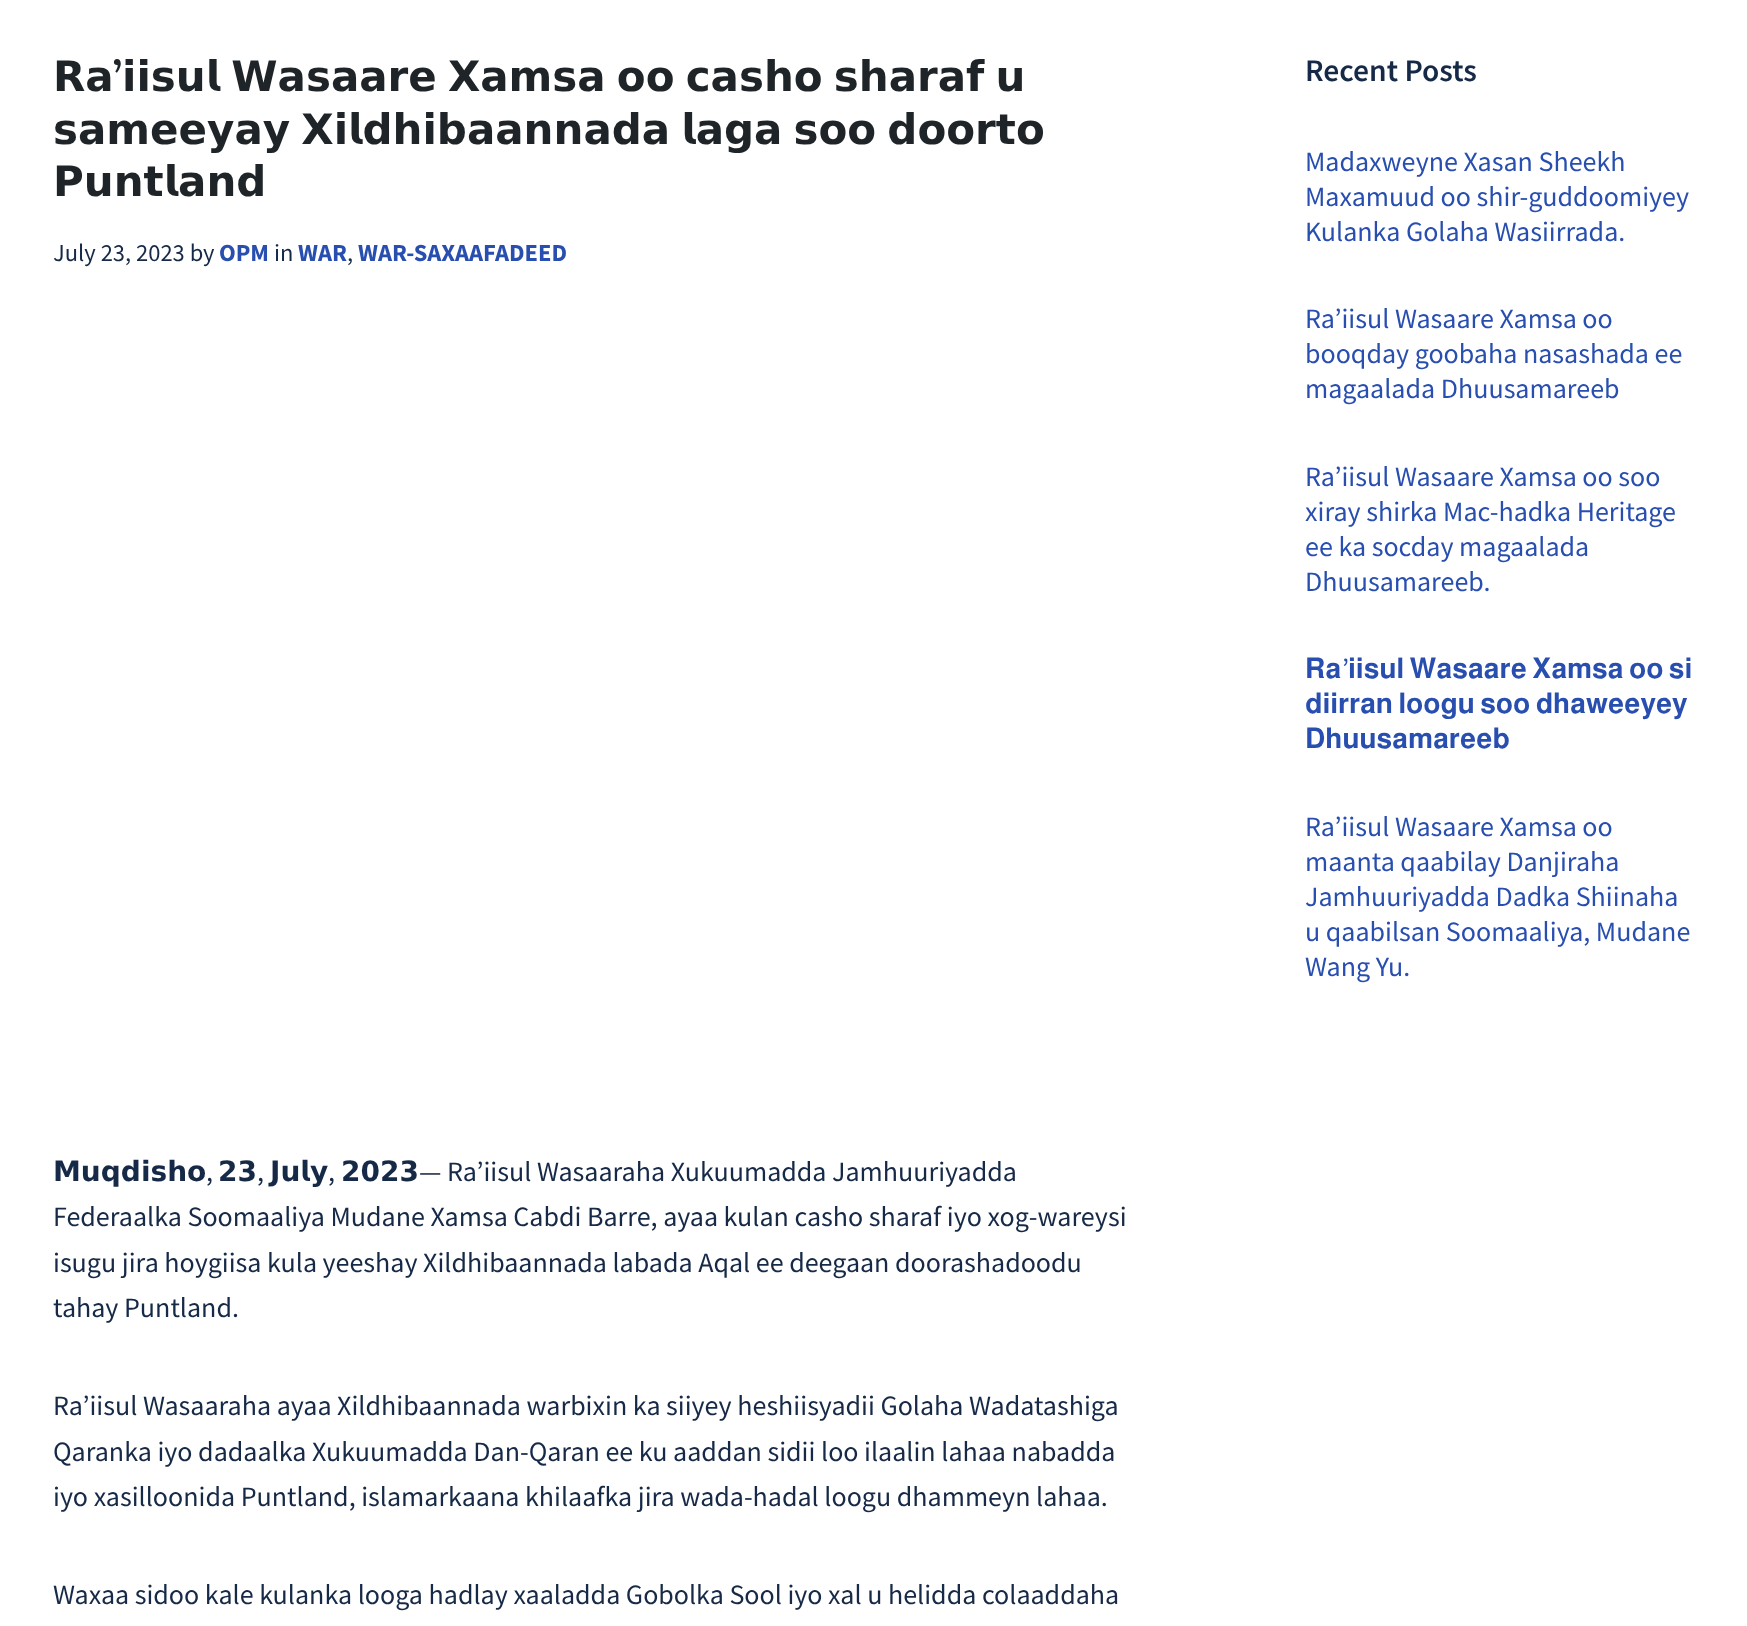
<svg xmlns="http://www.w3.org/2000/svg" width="1747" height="1626">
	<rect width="100%" height="100%" fill="#FFFFFF" />
	<text x="53" y="91" font-family="DejaVu Sans" font-size="42" font-weight="700" fill="#1E2427">𝗥𝗮</text>
	<text x="113" y="91" font-family="Lora" font-size="42" font-weight="700" fill="#1E2427">’</text>
	<g font-family="DejaVu Sans" font-size="42" font-weight="700" fill="#1E2427">
		<text x="122" y="91" word-spacing="-3.5">𝗶𝗶𝘀𝘂𝗹 𝗪𝗮𝘀𝗮𝗮𝗿𝗲 𝗫𝗮𝗺𝘀𝗮 𝗼𝗼 𝗰𝗮𝘀𝗵𝗼 𝘀𝗵𝗮𝗿𝗮𝗳 𝘂</text>
		<text x="53" y="144" word-spacing="-3.5">𝘀𝗮𝗺𝗲𝗲𝘆𝗮𝘆 𝗫𝗶𝗹𝗱𝗵𝗶𝗯𝗮𝗮𝗻𝗻𝗮𝗱𝗮 𝗹𝗮𝗴𝗮 𝘀𝗼𝗼 𝗱𝗼𝗼𝗿𝘁𝗼</text>
		<text x="53" y="196">𝗣𝘂𝗻𝘁𝗹𝗮𝗻𝗱</text>
	</g>
	<text x="53" y="261" font-family="Source Sans Pro" font-size="24.5" fill="#162947">July 23, 2023 by</text>
	<text x="219" y="261" font-family="Source Sans Pro" font-size="24.5" font-weight="700" fill="#284EAF">OPM</text>
	<text x="274" y="261" font-family="Source Sans Pro" font-size="24.5" fill="#162947">in</text>
	<g font-family="Source Sans Pro" font-size="24.5" font-weight="700" fill="#284EAF">
		<text x="298" y="261">WAR</text>
		<text x="358" y="261">WAR-SAXAAFADEED</text>
	</g>
	<text x="347" y="261" font-family="Source Sans Pro" font-size="24.5" fill="#162947">,</text>
	<text x="53" y="1181" font-family="DejaVu Sans" font-size="28" font-weight="700" fill="#162947">𝗠𝘂𝗾𝗱𝗶𝘀𝗵𝗼</text>
	<text x="206" y="1181" font-family="Source Sans Pro" font-size="28" fill="#162947">,</text>
	<text x="218" y="1181" font-family="DejaVu Sans" font-size="28" font-weight="700" fill="#162947">𝟮𝟯</text>
	<text x="257" y="1181" font-family="Source Sans Pro" font-size="28" fill="#162947">,</text>
	<text x="270" y="1181" font-family="DejaVu Sans" font-size="28" font-weight="700" fill="#162947">𝗝𝘂𝗹𝘆</text>
	<text x="328" y="1181" font-family="Source Sans Pro" font-size="28" fill="#162947">,</text>
	<text x="341" y="1181" font-family="DejaVu Sans" font-size="28" font-weight="700" fill="#162947">𝟮𝟬𝟮𝟯</text>
	<g font-family="Source Sans Pro" font-size="28" fill="#162947">
		<text x="419" y="1181">— Ra’iisul Wasaaraha Xukuumadda Jamhuuriyadda</text>
		<text x="53" y="1226">Federaalka Soomaaliya Mudane Xamsa Cabdi Barre, ayaa kulan casho sharaf iyo xog-wareysi</text>
		<text x="53" y="1272">isugu jira hoygiisa kula yeeshay Xildhibaannada labada Aqal ee deegaan doorashadoodu</text>
		<text x="53" y="1317">tahay Puntland.</text>
		<text x="53" y="1415">Ra’iisul Wasaaraha ayaa Xildhibaannada warbixin ka siiyey heshiisyadii Golaha Wadatashiga</text>
		<text x="53" y="1461">Qaranka iyo dadaalka Xukuumadda Dan-Qaran ee ku aaddan sidii loo ilaalin lahaa nabadda</text>
		<text x="53" y="1506">iyo xasilloonida Puntland, islamarkaana khilaafka jira wada-hadal loogu dhammeyn lahaa.</text>
		<text x="53" y="1604">Waxaa sidoo kale kulanka looga hadlay xaaladda Gobolka Sool iyo xal u helidda colaaddaha</text>
	</g>
	<text x="1305" y="81" font-family="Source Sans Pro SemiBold" font-size="31.5" font-weight="600" fill="#162947">Recent Posts</text>
	<g font-family="Source Sans Pro" font-size="28" fill="#284EAF">
		<text x="1305" y="171">Madaxweyne Xasan Sheekh</text>
		<text x="1305" y="206">Maxamuud oo shir-guddoomiyey</text>
		<text x="1305" y="241">Kulanka Golaha Wasiirrada.</text>
		<text x="1305" y="328">Ra’iisul Wasaare Xamsa oo</text>
		<text x="1305" y="363">booqday goobaha nasashada ee</text>
		<text x="1305" y="398">magaalada Dhuusamareeb</text>
		<text x="1305" y="486">Ra’iisul Wasaare Xamsa oo soo</text>
		<text x="1305" y="521">xiray shirka Mac-hadka Heritage</text>
		<text x="1305" y="556">ee ka socday magaalada</text>
		<text x="1305" y="591">Dhuusamareeb.</text>
	</g>
	<text x="1305" y="678" font-family="FreeSans" font-size="28" fill="#284EAF">𝐑𝐚</text>
	<text x="1342" y="678" font-family="Source Sans Pro" font-size="28" fill="#284EAF">’</text>
	<g font-family="FreeSans" font-size="28" fill="#284EAF">
		<text x="1348" y="678" word-spacing="-1.5">𝐢𝐢𝐬𝐮𝐥 𝐖𝐚𝐬𝐚𝐚𝐫𝐞 𝐗𝐚𝐦𝐬𝐚 𝐨𝐨 𝐬𝐢</text>
		<text x="1305" y="713" word-spacing="-1.5">𝐝𝐢𝐢𝐫𝐫𝐚𝐧 𝐥𝐨𝐨𝐠𝐮 𝐬𝐨𝐨 𝐝𝐡𝐚𝐰𝐞𝐞𝐲𝐞𝐲</text>
		<text x="1305" y="748">𝐃𝐡𝐮𝐮𝐬𝐚𝐦𝐚𝐫𝐞𝐞𝐛</text>
	</g>
	<g font-family="Source Sans Pro" font-size="28" fill="#284EAF">
		<text x="1305" y="836">Ra’iisul Wasaare Xamsa oo</text>
		<text x="1305" y="871">maanta qaabilay Danjiraha</text>
		<text x="1305" y="906">Jamhuuriyadda Dadka Shiinaha</text>
		<text x="1305" y="941">u qaabilsan Soomaaliya, Mudane</text>
		<text x="1305" y="976">Wang Yu.</text>
	</g>
</svg>
